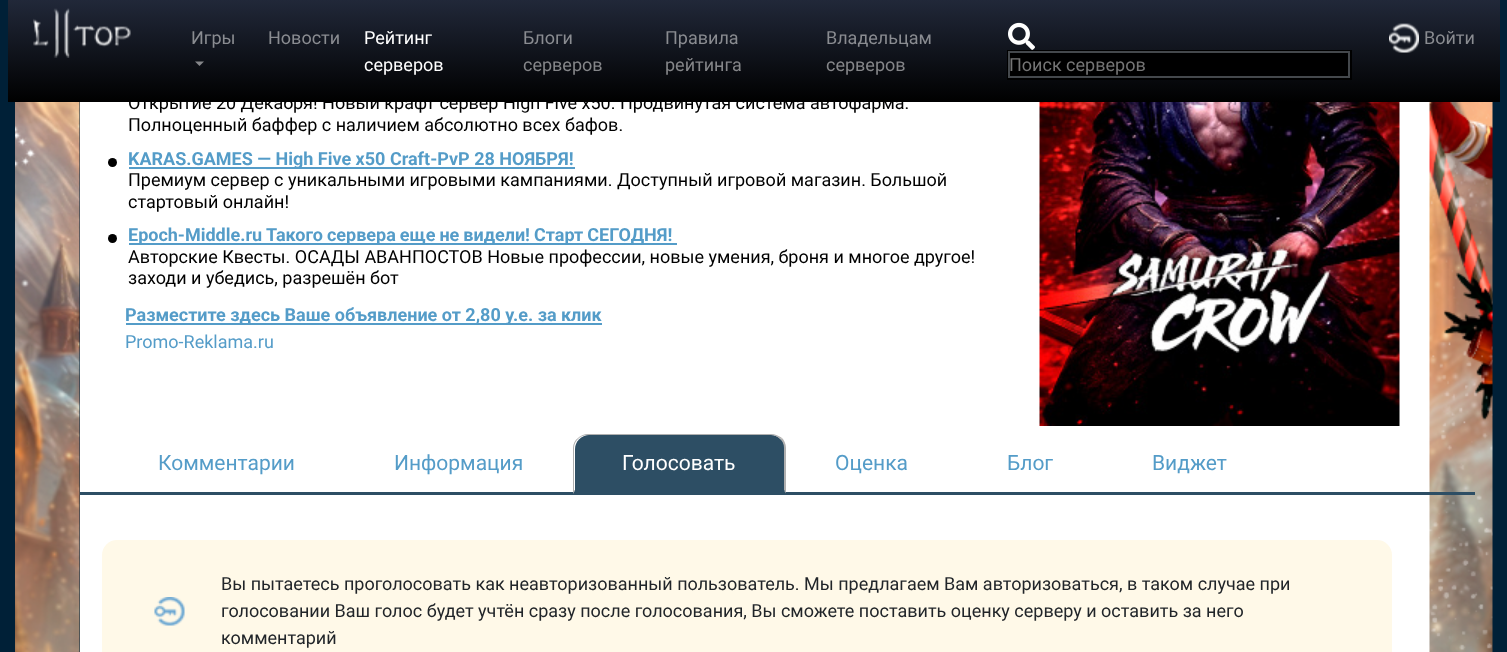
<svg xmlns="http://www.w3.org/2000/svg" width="1507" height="652">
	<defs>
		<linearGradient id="g1" gradientUnits="userSpaceOnUse" x1="754" y1="102" x2="754" y2="0"><stop offset="0" stop-color="#000000" /><stop offset="1" stop-color="#212839" /></linearGradient>
	</defs>
	<rect width="100%" height="100%" fill="#002037" />
	<rect x="80" y="102" width="1350" height="550" fill="#FFFFFF" />
	<text x="128" y="109" font-family="Roboto" font-size="18" fill="#000000">Открытие 20 Декабря! Новый крафт сервер High Five x50. Продвинутая система автофарма.</text>
	<rect x="8" y="0" width="1492" height="102" fill="url(#g1)" />
	<image x="33" y="8" width="98" height="50" href="assets/img1.png" />
	<text x="191" y="44" font-family="Roboto" font-size="18" fill="#8A8C91">Игры</text>
	<path d="M195 61.5H204L199.5 66Z" fill="#86878A" />
	<text x="268" y="44" font-family="Roboto" font-size="18" fill="#8A8C91">Новости</text>
	<g font-family="Roboto" font-size="18" fill="#FFFFFF">
		<text x="364" y="44">Рейтинг</text>
		<text x="364" y="71">серверов</text>
	</g>
	<text x="523" y="44" font-family="Roboto" font-size="18" fill="#8A8C91">Блоги</text>
	<text x="523" y="71" font-family="Roboto" font-size="18" fill="#858689">серверов</text>
	<text x="665" y="44" font-family="Roboto" font-size="18" fill="#8A8C91">Правила</text>
	<text x="665" y="71" font-family="Roboto" font-size="18" fill="#858689">рейтинга</text>
	<text x="826" y="44" font-family="Roboto" font-size="18" fill="#8A8C91">Владельцам</text>
	<text x="826" y="71" font-family="Roboto" font-size="18" fill="#858689">серверов</text>
	<image x="1008" y="22" width="27" height="28" href="assets/img2.png" />
	<rect x="1007" y="50" width="345" height="30" fill="#000000" />
	<rect x="1009" y="52" width="340" height="25" fill="none" stroke="#44484C" stroke-width="2" />
	<text x="1009" y="71" font-family="Roboto" font-size="18" fill="#757575">Поиск серверов</text>
	<image x="1389" y="23" width="30" height="30" href="assets/img3.png" />
	<text x="1424" y="44" font-family="Roboto" font-size="18" fill="#8A8C91">Войти</text>
	<image x="15" y="102" width="65" height="550" href="assets/img4.png" />
	<text x="128" y="131" font-family="Roboto" font-size="18" fill="#000000">Полноценный баффер с наличием абсолютно всех бафов.</text>
	<circle cx="112.5" cy="162.5" r="4.5" fill="#000000" />
	<rect x="129" y="167" width="446" height="2" fill="#549CC8" />
	<text x="128" y="165" font-family="Roboto" font-size="18" font-weight="700" fill="#549CC8">KARAS.GAMES — High Five x50 Craft-PvP 28 НОЯБРЯ!</text>
	<g font-family="Roboto" font-size="18" fill="#000000">
		<text x="128" y="186">Премиум сервер с уникальными игровыми кампаниями. Доступный игровой магазин. Большой</text>
		<text x="128" y="208">стартовый онлайн!</text>
	</g>
	<circle cx="112.5" cy="238.5" r="4.5" fill="#000000" />
	<rect x="129" y="243" width="548" height="2" fill="#549CC8" />
	<text x="128" y="241" word-spacing="-0.5" font-family="Roboto" font-size="18" font-weight="700" fill="#549CC8">Epoch-Middle.ru Такого сервера еще не видели! Старт СЕГОДНЯ!</text>
	<g font-family="Roboto" font-size="18" fill="#000000">
		<text x="128" y="263">Авторские Квесты. ОСАДЫ АВАНПОСТОВ Новые профессии, новые умения, броня и многое другое!</text>
		<text x="128" y="284">заходи и убедись, разрешён бот</text>
	</g>
	<rect x="126" y="323" width="476" height="2" fill="#549CC8" />
	<text x="125" y="321" font-family="Roboto" font-size="18" font-weight="700" fill="#549CC8">Разместите здесь Ваше объявление от 2,80 у.е. за клик</text>
	<text x="125" y="348" font-family="Roboto" font-size="18" fill="#549CC8">Promo-Reklama.ru</text>
	<image x="1039" y="102" width="361" height="324" href="assets/img5.png" />
	<image x="1429" y="102" width="64" height="550" href="assets/img7.png" />
	<rect x="80" y="492" width="1395" height="3" fill="#2D4E64" />
	<g font-family="Roboto" font-size="21" fill="#549CC8">
		<text x="158" y="470">Комментарии</text>
		<text x="394" y="470">Информация</text>
	</g>
	<path d="M589 435H771C778.5 435 785 441.5 785 449V491H575V449C575 441.5 581.5 435 589 435Z" fill="#2D4E64" />
	<path d="M588 434C584 434 580 436 578 438V439C581 436 584 435 588 435H771C775 435 778 437 780 439L782 438C779 436 775 434 771 434Z" fill="#B0B0B0" />
	<path d="M782 438C784 440 786 444 786 448V494L784 490V448C784 445 783 441 780 439Z" fill="#B0B0B0" />
	<path d="M786 494H573L575 490H784Z" fill="#2D4E64" />
	<path d="M573 494L575 490H574V448C574 444 576 441 578 439V438C575 440 573 444 573 448Z" fill="#B0B0B0" />
	<text x="622" y="470" font-family="Roboto" font-size="21" fill="#FFFFFF">Голосовать</text>
	<g font-family="Roboto" font-size="21" fill="#549CC8">
		<text x="835" y="470">Оценка</text>
		<text x="1007" y="470">Блог</text>
		<text x="1152" y="470">Виджет</text>
	</g>
	<rect x="102" y="540" width="1290" height="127" rx="15" fill="#FFF9E8" />
	<image x="154" y="597" width="31" height="29" href="assets/img6.png" />
	<g font-family="Roboto" font-size="18" fill="#212529">
		<text x="221" y="590">Вы пытаетесь проголосовать как неавторизованный пользователь. Мы предлагаем Вам авторизоваться, в таком случае при</text>
		<text x="221" y="617">голосовании Ваш голос будет учтён сразу после голосования, Вы сможете поставить оценку серверу и оставить за него</text>
		<text x="221" y="644">комментарий</text>
	</g>
</svg>
